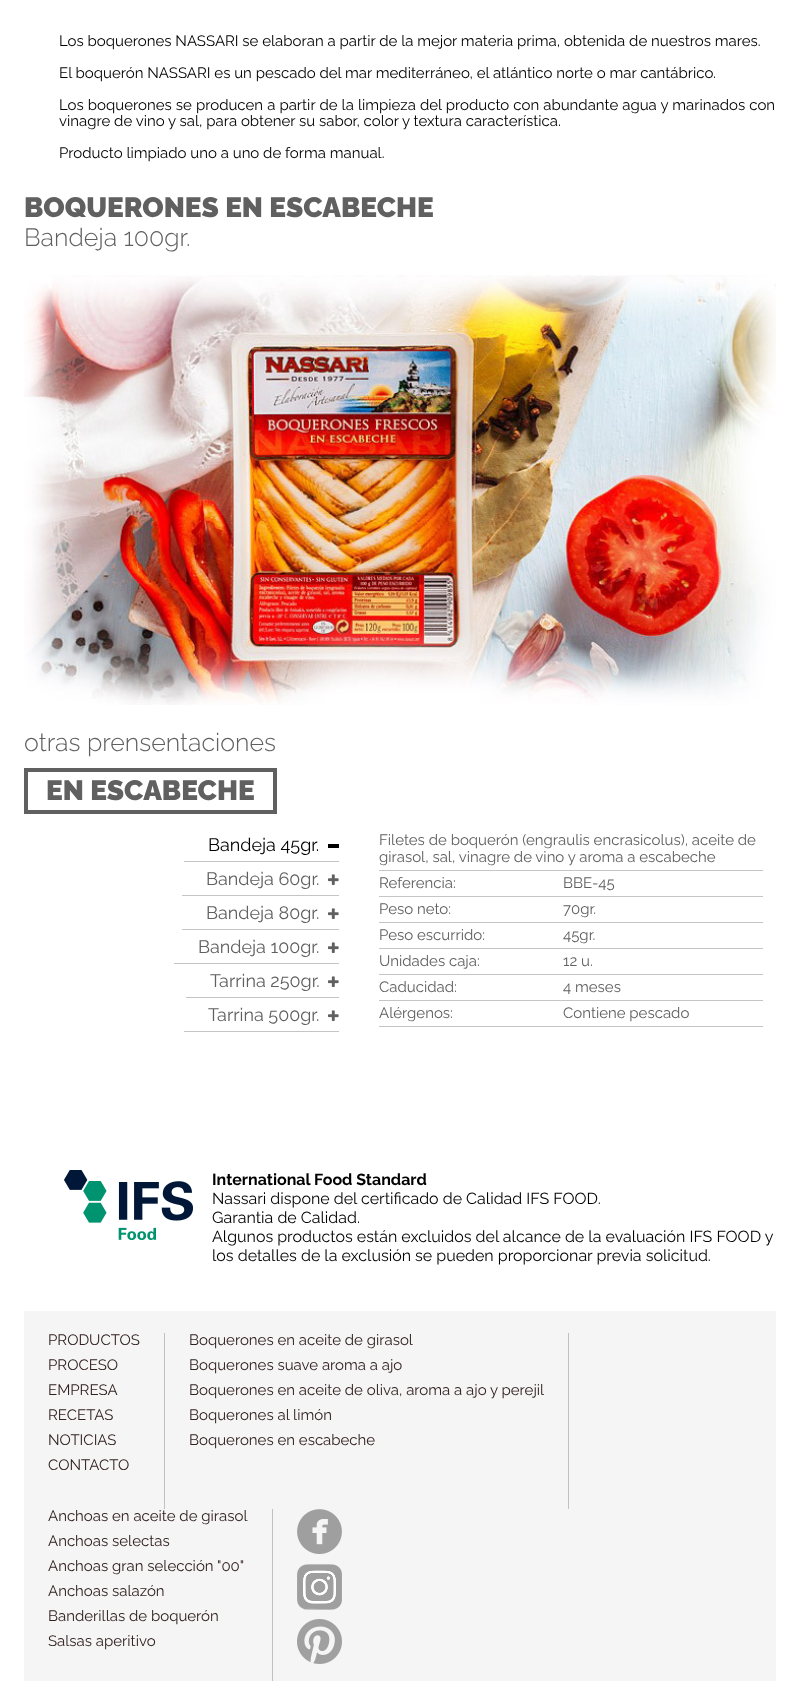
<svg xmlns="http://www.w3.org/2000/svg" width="800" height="1681">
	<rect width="100%" height="100%" fill="#FFFFFF" />
	<g font-family="Raleway" font-size="15" fill="#000000">
		<text x="59" y="46">Los boquerones NASSARI se elaboran a partir de la mejor materia prima, obtenida de nuestros mares.</text>
		<text x="59" y="78">El boquerón NASSARI es un pescado del mar mediterráneo, el atlántico norte o mar cantábrico.</text>
		<text x="59" y="110" word-spacing="0.25">Los boquerones se producen a partir de la limpieza del producto con abundante agua y marinados con</text>
		<text x="59" y="126">vinagre de vino y sal, para obtener su sabor, color y textura característica.</text>
		<text x="59" y="158">Producto limpiado uno a uno de forma manual.</text>
	</g>
	<text x="24" y="217" font-family="Raleway" font-size="28" font-weight="900" fill="#606060">BOQUERONES EN ESCABECHE</text>
	<text x="24" y="246" font-family="Raleway" font-size="25" font-weight="300" fill="#606060">Bandeja 100gr.</text>
	<image x="24" y="275" width="752" height="430" href="assets/img1.png" />
	<text x="24" y="751" font-family="Raleway" font-size="25" font-weight="300" fill="#606060">otras prensentaciones</text>
	<rect x="26" y="770" width="249" height="42" fill="none" stroke="#606060" stroke-width="4" />
	<text x="46" y="800" font-family="Raleway" font-size="28" font-weight="900" fill="#606060">EN ESCABECHE</text>
	<rect x="184" y="861" width="155" height="1" fill="#C9C4C4" />
	<text x="208" y="851" font-family="Raleway" font-size="18" fill="#000000">Bandeja 45gr.</text>
	<rect x="328" y="844" width="11" height="4" fill="#000000" />
	<rect x="182" y="895" width="157" height="1" fill="#C9C4C4" />
	<text x="206" y="885" font-family="Raleway" font-size="18" fill="#606060">Bandeja 60gr.</text>
	<image x="328" y="874" width="11" height="11" href="assets/img2.png" />
	<rect x="182" y="929" width="157" height="1" fill="#C9C4C4" />
	<text x="206" y="919" font-family="Raleway" font-size="18" fill="#606060">Bandeja 80gr.</text>
	<image x="328" y="908" width="11" height="11" href="assets/img2.png" />
	<rect x="174" y="963" width="165" height="1" fill="#C9C4C4" />
	<text x="198" y="953" font-family="Raleway" font-size="18" fill="#606060">Bandeja 100gr.</text>
	<image x="328" y="942" width="11" height="11" href="assets/img2.png" />
	<rect x="186" y="997" width="153" height="1" fill="#C9C4C4" />
	<text x="210" y="987" font-family="Raleway" font-size="18" fill="#606060">Tarrina 250gr.</text>
	<image x="328" y="976" width="11" height="11" href="assets/img2.png" />
	<rect x="184" y="1031" width="155" height="1" fill="#C9C4C4" />
	<text x="208" y="1021" font-family="Raleway" font-size="18" fill="#606060">Tarrina 500gr.</text>
	<image x="328" y="1010" width="11" height="11" href="assets/img2.png" />
	<rect x="379" y="870" width="384" height="1" fill="#C9C4C4" />
	<g font-family="Raleway" font-size="15" fill="#606060">
		<text x="379" y="845">Filetes de boquerón (engraulis encrasicolus), aceite de</text>
		<text x="379" y="862">girasol, sal, vinagre de vino y aroma a escabeche</text>
	</g>
	<rect x="379" y="896" width="384" height="1" fill="#C9C4C4" />
	<g font-family="Raleway" font-size="15" fill="#606060">
		<text x="379" y="888">Referencia:</text>
		<text x="563" y="888">BBE-45</text>
	</g>
	<rect x="379" y="922" width="384" height="1" fill="#C9C4C4" />
	<g font-family="Raleway" font-size="15" fill="#606060">
		<text x="379" y="914">Peso neto:</text>
		<text x="563" y="914">70gr.</text>
	</g>
	<rect x="379" y="948" width="384" height="1" fill="#C9C4C4" />
	<g font-family="Raleway" font-size="15" fill="#606060">
		<text x="379" y="940">Peso escurrido:</text>
		<text x="563" y="940">45gr.</text>
	</g>
	<rect x="379" y="974" width="384" height="1" fill="#C9C4C4" />
	<g font-family="Raleway" font-size="15" fill="#606060">
		<text x="379" y="966">Unidades caja:</text>
		<text x="563" y="966">12 u.</text>
	</g>
	<rect x="379" y="1000" width="384" height="1" fill="#C9C4C4" />
	<g font-family="Raleway" font-size="15" fill="#606060">
		<text x="379" y="992">Caducidad:</text>
		<text x="563" y="992">4 meses</text>
	</g>
	<rect x="379" y="1026" width="384" height="1" fill="#C9C4C4" />
	<g font-family="Raleway" font-size="15" fill="#606060">
		<text x="379" y="1018">Alérgenos:</text>
		<text x="563" y="1018">Contiene pescado</text>
	</g>
	<image x="64" y="1170" width="129" height="70" href="assets/img3.png" />
	<text x="212" y="1185" font-family="Raleway" font-size="16" font-weight="700" fill="#000000">International Food Standard</text>
	<g font-family="Raleway" font-size="16" fill="#000000">
		<text x="212" y="1204">Nassari dispone del certificado de Calidad IFS FOOD.</text>
		<text x="212" y="1223">Garantia de Calidad.</text>
		<text x="212" y="1242">Algunos productos están excluidos del alcance de la evaluación IFS FOOD y</text>
		<text x="212" y="1261">los detalles de la exclusión se pueden proporcionar previa solicitud.</text>
	</g>
	<rect x="24" y="1311" width="752" height="370" fill="#F5F5F5" />
	<rect x="164" y="1333" width="1" height="176" fill="#C1C1C1" />
	<g font-family="Raleway" font-size="15" fill="#322120">
		<text x="48" y="1345">PRODUCTOS</text>
		<text x="48" y="1370">PROCESO</text>
		<text x="48" y="1395">EMPRESA</text>
		<text x="48" y="1420">RECETAS</text>
		<text x="48" y="1445">NOTICIAS</text>
		<text x="48" y="1470">CONTACTO</text>
	</g>
	<rect x="568" y="1333" width="1" height="176" fill="#C1C1C1" />
	<g font-family="Raleway" font-size="15" fill="#322120">
		<text x="189" y="1345">Boquerones en aceite de girasol</text>
		<text x="189" y="1370">Boquerones suave aroma a ajo</text>
		<text x="189" y="1395">Boquerones en aceite de oliva, aroma a ajo y perejil</text>
		<text x="189" y="1420">Boquerones al limón</text>
		<text x="189" y="1445">Boquerones en escabeche</text>
	</g>
	<rect x="272" y="1509" width="1" height="172" fill="#C1C1C1" />
	<g font-family="Raleway" font-size="15" fill="#322120">
		<text x="48" y="1521">Anchoas en aceite de girasol</text>
		<text x="48" y="1546">Anchoas selectas</text>
		<text x="48" y="1571">Anchoas gran selección "00"</text>
		<text x="48" y="1596">Anchoas salazón</text>
		<text x="48" y="1621">Banderillas de boquerón</text>
		<text x="48" y="1646">Salsas aperitivo</text>
	</g>
	<image x="297" y="1509" width="45" height="45" href="assets/img4.png" />
	<image x="297" y="1564" width="45" height="46" href="assets/img5.png" />
	<image x="297" y="1619" width="45" height="45" href="assets/img6.png" />
</svg>
